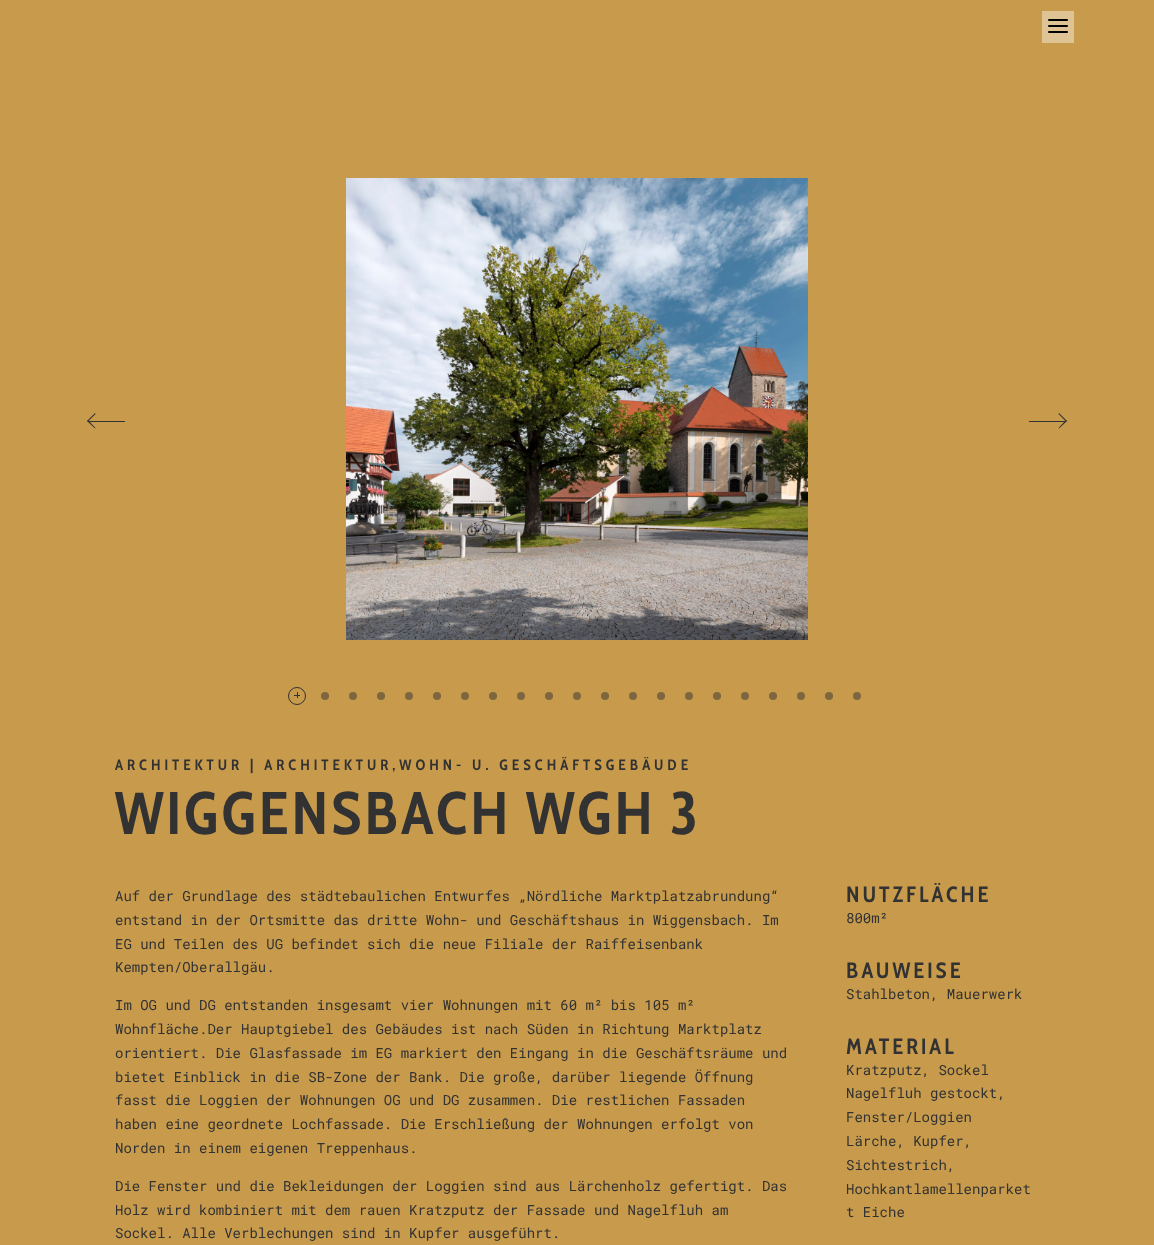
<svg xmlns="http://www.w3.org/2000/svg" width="1154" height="1245">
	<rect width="100%" height="100%" fill="#C89B4C" />
	<rect x="1042" y="11" width="32" height="32" fill="#DEC394" />
	<image x="1048" y="19" width="20" height="14" href="assets/img1.png" />
	<image x="346" y="178" width="462" height="462" href="assets/img2.png" />
	<rect x="89" y="421" width="36" height="1" fill="#323232" />
	<path d="M87 421L95 413L95.5 414L88 421.5Z" fill="#323232" />
	<path d="M87 421L88 420L95.5 428L95 428.5Z" fill="#323232" />
	<rect x="1029" y="421" width="36" height="1" fill="#323232" />
	<path d="M1058.5 414L1059 413L1067 421L1066 421.5Z" fill="#323232" />
	<path d="M1058.5 428L1066 420L1067 421L1059 428.5Z" fill="#323232" />
	<circle cx="297" cy="696" r="8.5" fill="none" stroke="#323232" />
	<rect x="294" y="695" width="6" height="1" fill="#323232" />
	<rect x="297" y="692" width="1" height="6" fill="#323232" />
	<circle cx="325" cy="696" r="4" fill="#7D673F" />
	<circle cx="353" cy="696" r="4" fill="#7D673F" />
	<circle cx="381" cy="696" r="4" fill="#7D673F" />
	<circle cx="409" cy="696" r="4" fill="#7D673F" />
	<circle cx="437" cy="696" r="4" fill="#7D673F" />
	<circle cx="465" cy="696" r="4" fill="#7D673F" />
	<circle cx="493" cy="696" r="4" fill="#7D673F" />
	<circle cx="521" cy="696" r="4" fill="#7D673F" />
	<circle cx="549" cy="696" r="4" fill="#7D673F" />
	<circle cx="577" cy="696" r="4" fill="#7D673F" />
	<circle cx="605" cy="696" r="4" fill="#7D673F" />
	<circle cx="633" cy="696" r="4" fill="#7D673F" />
	<circle cx="661" cy="696" r="4" fill="#7D673F" />
	<circle cx="689" cy="696" r="4" fill="#7D673F" />
	<circle cx="717" cy="696" r="4" fill="#7D673F" />
	<circle cx="745" cy="696" r="4" fill="#7D673F" />
	<circle cx="773" cy="696" r="4" fill="#7D673F" />
	<circle cx="801" cy="696" r="4" fill="#7D673F" />
	<circle cx="829" cy="696" r="4" fill="#7D673F" />
	<circle cx="857" cy="696" r="4" fill="#7D673F" />
	<text x="115" y="770" font-family="Cabin Condensed" font-size="15" font-weight="700" letter-spacing="4" fill="#323232">ARCHITEKTUR | ARCHITEKTUR,WOHN- U. GESCHÄFTSGEBÄUDE</text>
	<text x="115" y="834" font-family="Cabin Condensed" font-size="60" font-weight="700" letter-spacing="3" fill="#323232">WIGGENSBACH WGH 3</text>
	<g font-family="Roboto Mono" font-size="14" fill="#323232">
		<text x="115" y="901">Auf der Grundlage des städtebaulichen Entwurfes „Nördliche Marktplatzabrundung“</text>
		<text x="115" y="925">entstand in der Ortsmitte das dritte Wohn- und Geschäftshaus in Wiggensbach. Im</text>
		<text x="115" y="949">EG und Teilen des UG befindet sich die neue Filiale der Raiffeisenbank</text>
		<text x="115" y="972">Kempten/Oberallgäu.</text>
		<text x="115" y="1010">Im OG und DG entstanden insgesamt vier Wohnungen mit 60 m² bis 105 m²</text>
		<text x="115" y="1034">Wohnfläche.Der Hauptgiebel des Gebäudes ist nach Süden in Richtung Marktplatz</text>
		<text x="115" y="1058">orientiert. Die Glasfassade im EG markiert den Eingang in die Geschäftsräume und</text>
		<text x="115" y="1082">bietet Einblick in die SB-Zone der Bank. Die große, darüber liegende Öffnung</text>
		<text x="115" y="1105">fasst die Loggien der Wohnungen OG und DG zusammen. Die restlichen Fassaden</text>
		<text x="115" y="1129">haben eine geordnete Lochfassade. Die Erschließung der Wohnungen erfolgt von</text>
		<text x="115" y="1153">Norden in einem eigenen Treppenhaus.</text>
		<text x="115" y="1191">Die Fenster und die Bekleidungen der Loggien sind aus Lärchenholz gefertigt. Das</text>
		<text x="115" y="1215">Holz wird kombiniert mit dem rauen Kratzputz der Fassade und Nagelfluh am</text>
		<text x="115" y="1238">Sockel. Alle Verblechungen sind in Kupfer ausgeführt.</text>
	</g>
	<text x="846" y="902" font-family="Cabin Condensed" font-size="22" font-weight="700" letter-spacing="3" fill="#323232">NUTZFLÄCHE</text>
	<text x="846" y="923" font-family="Roboto Mono" font-size="14" fill="#323232">800m²</text>
	<text x="846" y="978" font-family="Cabin Condensed" font-size="22" font-weight="700" letter-spacing="3" fill="#323232">BAUWEISE</text>
	<text x="846" y="999" font-family="Roboto Mono" font-size="14" fill="#323232">Stahlbeton, Mauerwerk</text>
	<text x="846" y="1054" font-family="Cabin Condensed" font-size="22" font-weight="700" letter-spacing="3" fill="#323232">MATERIAL</text>
	<g font-family="Roboto Mono" font-size="14" fill="#323232">
		<text x="846" y="1075">Kratzputz, Sockel</text>
		<text x="846" y="1098">Nagelfluh gestockt,</text>
		<text x="846" y="1122">Fenster/Loggien</text>
		<text x="846" y="1146">Lärche, Kupfer,</text>
		<text x="846" y="1170">Sichtestrich,</text>
		<text x="846" y="1194">Hochkantlamellenparket</text>
		<text x="846" y="1217">t Eiche</text>
	</g>
</svg>
